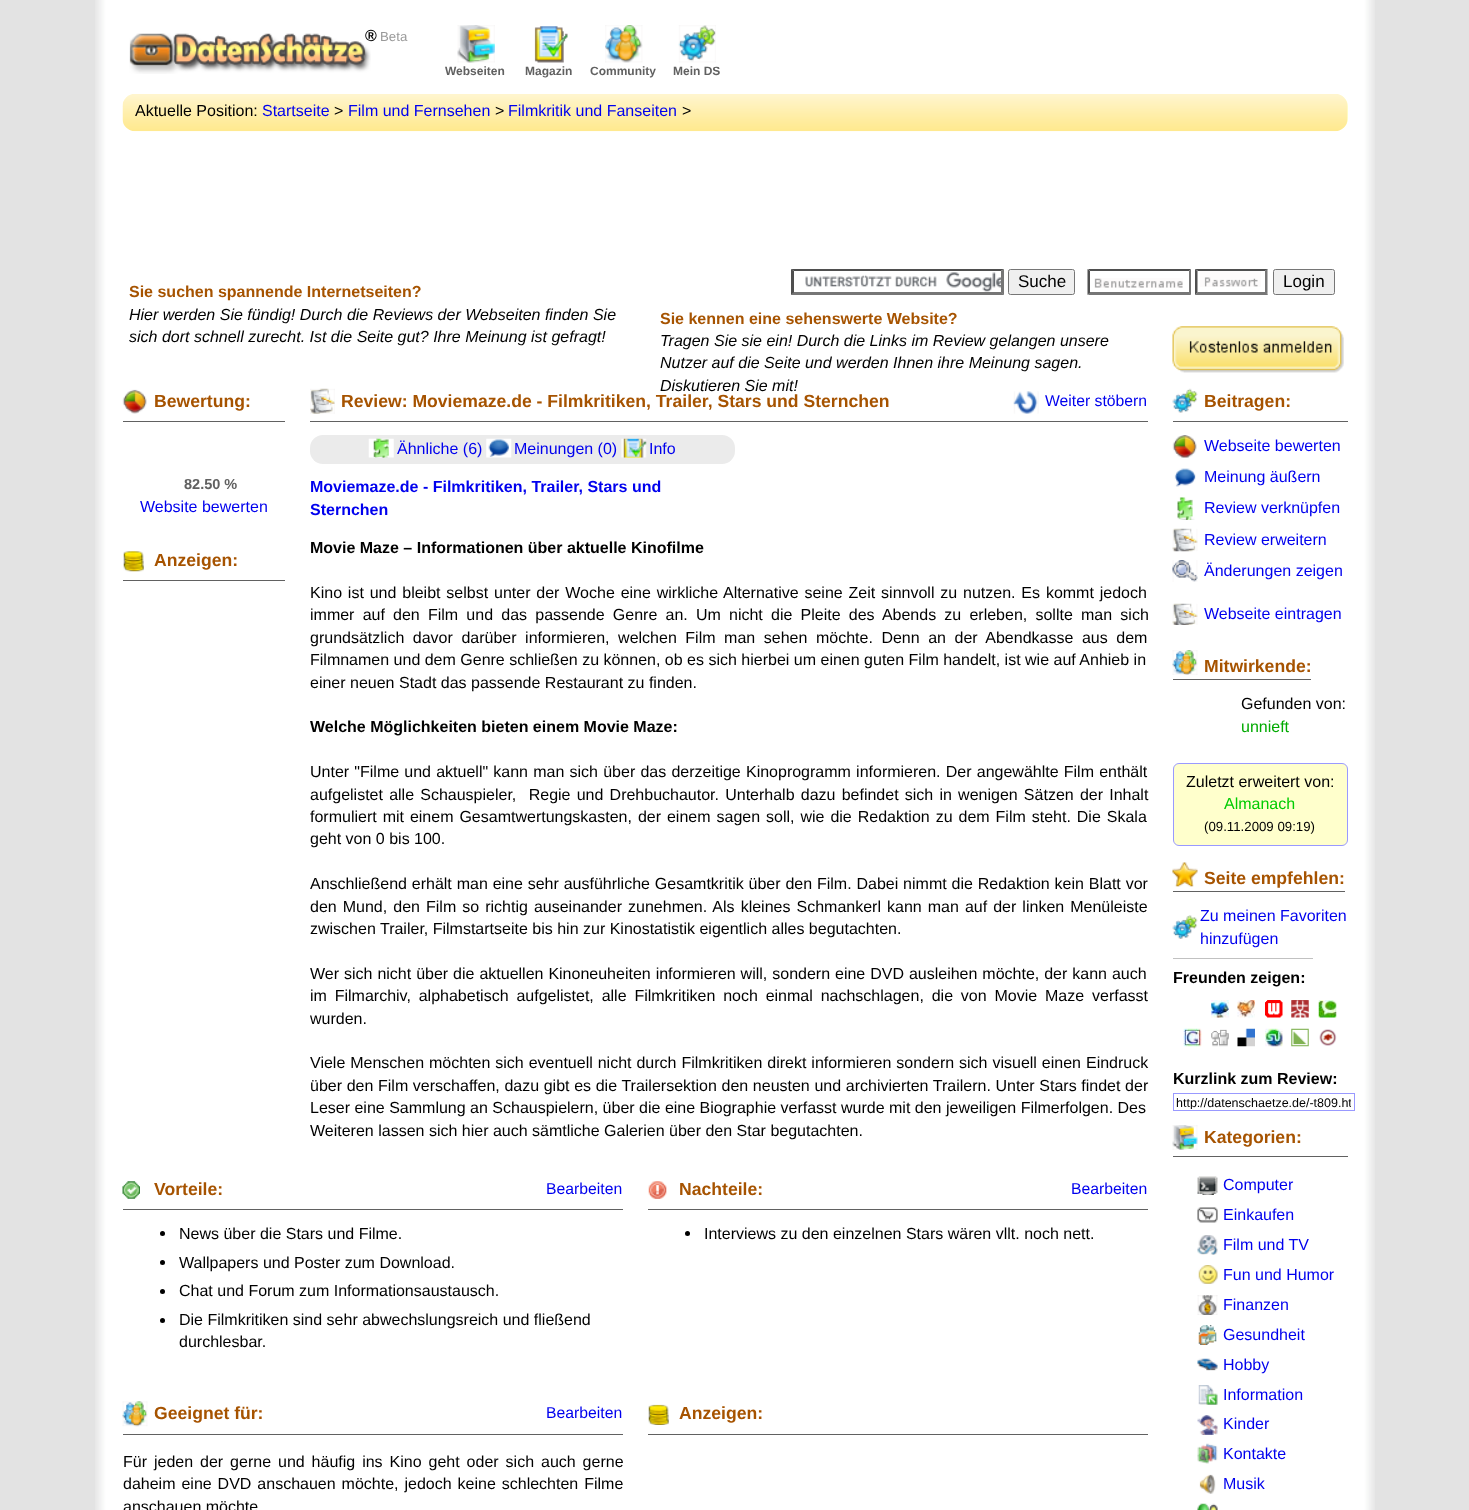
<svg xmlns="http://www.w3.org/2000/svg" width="1469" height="1510">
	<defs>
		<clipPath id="clip1"><rect x="1176" y="1095" width="175" height="14" /></clipPath>
	</defs>
	<rect width="100%" height="100%" fill="#E3E3E3" />
	<image x="95" y="0" width="1280" height="1510" href="assets/img1.png" />
	<image x="129" y="33" width="242" height="41" href="assets/img2.png" />
	<text x="365" y="41" font-family="Liberation Sans" font-size="16" font-weight="700" fill="#000000">®</text>
	<text x="380" y="41" font-family="Liberation Sans" font-size="13.25" fill="#999999">Beta</text>
	<image x="457" y="25" width="38" height="38" href="assets/img3.png" />
	<text x="445" y="75" font-family="Liberation Sans" font-size="12" font-weight="700" fill="#616161">Webseiten</text>
	<image x="534" y="26" width="34" height="37" href="assets/img4.png" />
	<text x="525" y="75" font-family="Liberation Sans" font-size="12" font-weight="700" fill="#616161">Magazin</text>
	<image x="605" y="25" width="38" height="38" href="assets/img5.png" />
	<text x="590" y="75" font-family="Liberation Sans" font-size="12" font-weight="700" fill="#616161">Community</text>
	<image x="678" y="25" width="38" height="38" href="assets/img6.png" />
	<text x="673" y="75" font-family="Liberation Sans" font-size="12" font-weight="700" fill="#616161">Mein DS</text>
	<rect x="123" y="94" width="1225" height="37" rx="13" fill="#FFFFCC" />
	<image x="122" y="94" width="1226" height="38" href="assets/img7.png" />
	<text x="135" y="116" font-family="Liberation Sans" font-size="16" fill="#000000">Aktuelle Position:</text>
	<text x="262" y="116" font-family="Liberation Sans" font-size="16" fill="#0000EE">Startseite</text>
	<text x="334" y="116" font-family="Liberation Sans" font-size="16" fill="#000000">&gt;</text>
	<text x="348" y="116" font-family="Liberation Sans" font-size="16" fill="#0000EE">Film und Fernsehen</text>
	<text x="495" y="116" font-family="Liberation Sans" font-size="16" fill="#000000">&gt;</text>
	<text x="508" y="116" font-family="Liberation Sans" font-size="16" fill="#0000EE">Filmkritik und Fanseiten</text>
	<text x="682" y="116" font-family="Liberation Sans" font-size="16" fill="#000000">&gt;</text>
	<image x="805" y="272" width="196" height="20" href="assets/img8.png" />
	<path d="M791 269H1004L1001 271H794Z" fill="#4F4F4F" />
	<path d="M1004 269V295L1001 292.5V271Z" fill="#767676" />
	<path d="M1004 295H791L794 292H1001Z" fill="#767676" />
	<path d="M791 295V269L794 271V292.5Z" fill="#4F4F4F" />
	<rect x="1008.5" y="269.5" width="66" height="25" rx="2" fill="#EFEFEF" stroke="#767676" />
	<text x="1018" y="287" font-family="Liberation Sans" font-size="17" fill="#000000">Suche</text>
	<image x="1094" y="278" width="89" height="10" href="assets/img9.png" />
	<path d="M1088 269H1191L1189 271H1090Z" fill="#4F4F4F" />
	<path d="M1191 269V295L1189 292.5V271Z" fill="#767676" />
	<path d="M1191 295H1088L1090 292H1189Z" fill="#767676" />
	<path d="M1087.5 295V269L1090 271V292.5Z" fill="#4F4F4F" />
	<image x="1200" y="271" width="61" height="16" href="assets/img10.png" />
	<path d="M1195 269H1268L1265 271H1198Z" fill="#4F4F4F" />
	<path d="M1267.5 269V295L1265 292.5V271Z" fill="#767676" />
	<path d="M1268 295H1195L1198 292H1265Z" fill="#767676" />
	<path d="M1195 295V269L1197.5 271V292.5Z" fill="#4F4F4F" />
	<rect x="1273.5" y="269.5" width="61" height="25" rx="2" fill="#EFEFEF" stroke="#767676" />
	<text x="1283" y="287" font-family="Liberation Sans" font-size="17" fill="#000000">Login</text>
	<text x="129" y="297" font-family="Liberation Sans" font-size="16" font-weight="700" fill="#A65300">Sie suchen spannende Internetseiten?</text>
	<g font-family="Liberation Sans" font-size="16" font-style="italic" fill="#000000">
		<text x="129" y="320">Hier werden Sie fündig! Durch die Reviews der Webseiten finden Sie</text>
		<text x="129" y="342">sich dort schnell zurecht. Ist die Seite gut? Ihre Meinung ist gefragt!</text>
	</g>
	<text x="660" y="324" font-family="Liberation Sans" font-size="16" font-weight="700" fill="#A65300">Sie kennen eine sehenswerte Website?</text>
	<g font-family="Liberation Sans" font-size="16" font-style="italic" fill="#000000">
		<text x="660" y="346">Tragen Sie sie ein! Durch die Links im Review gelangen unsere</text>
		<text x="660" y="368">Nutzer auf die Seite und werden Ihnen ihre Meinung sagen.</text>
		<text x="660" y="391">Diskutieren Sie mit!</text>
	</g>
	<image x="1172" y="326" width="172" height="47" href="assets/img11.png" />
	<image x="122" y="389" width="25" height="25" href="assets/img12.png" />
	<rect x="123" y="421" width="162" height="1" fill="#616161" />
	<text x="154" y="407" font-family="Liberation Sans" font-size="17.6" font-weight="700" fill="#A65300">Bewertung:</text>
	<text x="184" y="489" font-family="Liberation Sans" font-size="14.5" font-weight="700" fill="#616161">82.50 %</text>
	<text x="140" y="512" font-family="Liberation Sans" font-size="16" fill="#0000EE">Website bewerten</text>
	<image x="123" y="551" width="21" height="21" href="assets/img13.png" />
	<rect x="123" y="580" width="162" height="1" fill="#616161" />
	<text x="154" y="566" font-family="Liberation Sans" font-size="17.6" font-weight="700" fill="#A65300">Anzeigen:</text>
	<image x="310" y="388" width="25" height="26" href="assets/img14.png" />
	<rect x="310" y="421" width="838" height="1" fill="#616161" />
	<text x="341" y="407" font-family="Liberation Sans" font-size="17.6" font-weight="700" fill="#A65300">Review: Moviemaze.de - Filmkritiken, Trailer, Stars und Sternchen</text>
	<image x="1013" y="391" width="26" height="23" href="assets/img15.png" />
	<text x="1045" y="406" font-family="Liberation Sans" font-size="15.75" fill="#0000EE">Weiter stöbern</text>
	<rect x="310" y="435" width="425" height="29" rx="13" fill="#EBEBEB" />
	<image x="368" y="438" width="26" height="20" href="assets/img16.png" />
	<text x="397" y="454" font-family="Liberation Sans" font-size="16" fill="#0000EE">Ähnliche (6)</text>
	<image x="486" y="438" width="26" height="20" href="assets/img17.png" />
	<text x="514" y="454" font-family="Liberation Sans" font-size="16" fill="#0000EE">Meinungen (0)</text>
	<image x="621" y="438" width="26" height="20" href="assets/img18.png" />
	<text x="649" y="454" font-family="Liberation Sans" font-size="16" fill="#0000EE">Info</text>
	<g font-family="Liberation Sans" font-size="16" font-weight="700" fill="#0000EE">
		<text x="310" y="492">Moviemaze.de - Filmkritiken, Trailer, Stars und</text>
		<text x="310" y="515">Sternchen</text>
	</g>
	<text x="310" y="553" font-family="Liberation Sans" font-size="16" font-weight="700" fill="#000000">Movie Maze – Informationen über aktuelle Kinofilme</text>
	<g font-family="Liberation Sans" font-size="16" fill="#000000">
		<text x="310" y="598" word-spacing="1.4">Kino ist und bleibt selbst unter der Woche eine wirkliche Alternative seine Zeit sinnvoll zu nutzen. Es kommt jedoch</text>
		<text x="310" y="620" word-spacing="3.75">immer auf den Film und das passende Genre an. Um nicht die Pleite des Abends zu erleben, sollte man sich</text>
		<text x="310" y="643" word-spacing="4.1">grundsätzlich davor darüber informieren, welchen Film man sehen möchte. Denn an der Abendkasse aus dem</text>
		<text x="310" y="665">Filmnamen und dem Genre schließen zu können, ob es sich hierbei um einen guten Film handelt, ist wie auf Anhieb in</text>
		<text x="310" y="688">einer neuen Stadt das passende Restaurant zu finden.</text>
	</g>
	<text x="310" y="732" font-family="Liberation Sans" font-size="16" font-weight="700" fill="#000000">Welche Möglichkeiten bieten einem Movie Maze:</text>
	<g font-family="Liberation Sans" font-size="16" fill="#000000">
		<text x="310" y="777" word-spacing="0.75">Unter "Filme und aktuell" kann man sich über das derzeitige Kinoprogramm informieren. Der angewählte Film enthält</text>
		<text x="310" y="800" word-spacing="1.75" xml:space="preserve">aufgelistet alle Schauspieler,  Regie und Drehbuchautor. Unterhalb dazu befindet sich in wenigen Sätzen der Inhalt</text>
		<text x="310" y="822" word-spacing="1.5">formuliert mit einem Gesamtwertungskasten, der einem sagen soll, wie die Redaktion zu dem Film steht. Die Skala</text>
		<text x="310" y="844">geht von 0 bis 100.</text>
		<text x="310" y="889" word-spacing="0.4">Anschließend erhält man eine sehr ausführliche Gesamtkritik über den Film. Dabei nimmt die Redaktion kein Blatt vor</text>
		<text x="310" y="912" word-spacing="1.6">den Mund, den Film so richtig auseinander zunehmen. Als kleines Schmankerl kann man auf der linken Menüleiste</text>
		<text x="310" y="934">zwischen Trailer, Filmstartseite bis hin zur Kinostatistik eigentlich alles begutachten.</text>
		<text x="310" y="979" word-spacing="0.5">Wer sich nicht über die aktuellen Kinoneuheiten informieren will, sondern eine DVD ausleihen möchte, der kann auch</text>
		<text x="310" y="1001" word-spacing="3.4">im Filmarchiv, alphabetisch aufgelistet, alle Filmkritiken noch einmal nachschlagen, die von Movie Maze verfasst</text>
		<text x="310" y="1024">wurden.</text>
		<text x="310" y="1068" word-spacing="0.5">Viele Menschen möchten sich eventuell nicht durch Filmkritiken direkt informieren sondern sich visuell einen Eindruck</text>
		<text x="310" y="1091" word-spacing="0.2">über den Film verschaffen, dazu gibt es die Trailersektion den neusten und archivierten Trailern. Unter Stars findet der</text>
		<text x="310" y="1113">Leser eine Sammlung an Schauspielern, über die eine Biographie verfasst wurde mit den jeweiligen Filmerfolgen. Des</text>
		<text x="310" y="1136">Weiteren lassen sich hier auch sämtliche Galerien über den Star begutachten.</text>
	</g>
	<image x="122" y="1181" width="18" height="18" href="assets/img19.png" />
	<rect x="123" y="1209" width="500" height="1" fill="#616161" />
	<text x="154" y="1195" font-family="Liberation Sans" font-size="17.6" font-weight="700" fill="#A65300">Vorteile:</text>
	<text x="546" y="1194" font-family="Liberation Sans" font-size="15.75" fill="#0000EE">Bearbeiten</text>
	<circle cx="162.5" cy="1233.5" r="2.5" fill="#000000" />
	<text x="179" y="1239" font-family="Liberation Sans" font-size="16" fill="#000000">News über die Stars und Filme.</text>
	<circle cx="162.5" cy="1262.5" r="2.5" fill="#000000" />
	<text x="179" y="1268" font-family="Liberation Sans" font-size="16" fill="#000000">Wallpapers und Poster zum Download.</text>
	<circle cx="162.5" cy="1291.5" r="2.5" fill="#000000" />
	<text x="179" y="1296" font-family="Liberation Sans" font-size="16" fill="#000000">Chat und Forum zum Informationsaustausch.</text>
	<circle cx="162.5" cy="1320.5" r="2.5" fill="#000000" />
	<g font-family="Liberation Sans" font-size="16" fill="#000000">
		<text x="179" y="1325">Die Filmkritiken sind sehr abwechslungsreich und fließend</text>
		<text x="179" y="1347">durchlesbar.</text>
	</g>
	<image x="648" y="1181" width="19" height="18" href="assets/img20.png" />
	<rect x="648" y="1209" width="500" height="1" fill="#616161" />
	<text x="679" y="1195" font-family="Liberation Sans" font-size="17.6" font-weight="700" fill="#A65300">Nachteile:</text>
	<text x="1071" y="1194" font-family="Liberation Sans" font-size="15.75" fill="#0000EE">Bearbeiten</text>
	<circle cx="687.5" cy="1233.5" r="2.5" fill="#000000" />
	<text x="704" y="1239" font-family="Liberation Sans" font-size="16" fill="#000000">Interviews zu den einzelnen Stars wären vllt. noch nett.</text>
	<image x="122" y="1401" width="26" height="26" href="assets/img21.png" />
	<rect x="123" y="1434" width="500" height="1" fill="#616161" />
	<text x="154" y="1419" font-family="Liberation Sans" font-size="17.6" font-weight="700" fill="#A65300">Geeignet für:</text>
	<text x="546" y="1418" font-family="Liberation Sans" font-size="15.75" fill="#0000EE">Bearbeiten</text>
	<g font-family="Liberation Sans" font-size="16" fill="#000000">
		<text x="123" y="1467" word-spacing="2.5">Für jeden der gerne und häufig ins Kino geht oder sich auch gerne</text>
		<text x="123" y="1489" word-spacing="1.5">daheim eine DVD anschauen möchte, jedoch keine schlechten Filme</text>
		<text x="123" y="1512">anschauen möchte</text>
	</g>
	<image x="648" y="1404" width="21" height="21" href="assets/img22.png" />
	<rect x="648" y="1434" width="500" height="1" fill="#616161" />
	<text x="679" y="1419" font-family="Liberation Sans" font-size="17.6" font-weight="700" fill="#A65300">Anzeigen:</text>
	<image x="1172" y="388" width="26" height="25" href="assets/img23.png" />
	<rect x="1173" y="421" width="175" height="1" fill="#616161" />
	<text x="1204" y="407" font-family="Liberation Sans" font-size="17.6" font-weight="700" fill="#A65300">Beitragen:</text>
	<image x="1172" y="435" width="25" height="23" href="assets/img24.png" />
	<text x="1204" y="451" font-family="Liberation Sans" font-size="16" fill="#0000EE">Webseite bewerten</text>
	<image x="1174" y="468" width="22" height="19" href="assets/img25.png" />
	<text x="1204" y="482" font-family="Liberation Sans" font-size="16" fill="#0000EE">Meinung äußern</text>
	<image x="1177" y="497" width="18" height="23" href="assets/img26.png" />
	<text x="1204" y="513" font-family="Liberation Sans" font-size="16" fill="#0000EE">Review verknüpfen</text>
	<image x="1172" y="528" width="26" height="24" href="assets/img27.png" />
	<text x="1204" y="545" font-family="Liberation Sans" font-size="16" fill="#0000EE">Review erweitern</text>
	<image x="1172" y="560" width="26" height="22" href="assets/img28.png" />
	<text x="1204" y="576" font-family="Liberation Sans" font-size="16" fill="#0000EE">Änderungen zeigen</text>
	<image x="1172" y="603" width="26" height="22" href="assets/img29.png" />
	<text x="1204" y="619" font-family="Liberation Sans" font-size="16" fill="#0000EE">Webseite eintragen</text>
	<image x="1172" y="650" width="26" height="25" href="assets/img30.png" />
	<rect x="1173" y="679" width="138" height="1" fill="#616161" />
	<text x="1204" y="672" font-family="Liberation Sans" font-size="17.6" font-weight="700" fill="#A65300">Mitwirkende:</text>
	<text x="1241" y="709" font-family="Liberation Sans" font-size="16" fill="#000000">Gefunden von:</text>
	<text x="1241" y="732" font-family="Liberation Sans" font-size="16" fill="#00AA00">unnieft</text>
	<rect x="1173.5" y="763.5" width="174" height="82" rx="5.5" fill="#FFFFCC" stroke="#9999FF" />
	<text x="1186" y="787" font-family="Liberation Sans" font-size="16" fill="#000000">Zuletzt erweitert von:</text>
	<text x="1224" y="809" font-family="Liberation Sans" font-size="16" fill="#00CC00">Almanach</text>
	<text x="1204" y="831" font-family="Liberation Sans" font-size="13.25" fill="#000000">(09.11.2009 09:19)</text>
	<image x="1172" y="862" width="26" height="25" href="assets/img31.png" />
	<rect x="1173" y="891" width="172" height="1" fill="#616161" />
	<text x="1204" y="884" font-family="Liberation Sans" font-size="17.6" font-weight="700" fill="#A65300">Seite empfehlen:</text>
	<image x="1172" y="915" width="26" height="24" href="assets/img32.png" />
	<g font-family="Liberation Sans" font-size="16" fill="#0000EE">
		<text x="1200" y="921">Zu meinen Favoriten</text>
		<text x="1200" y="944">hinzufügen</text>
	</g>
	<rect x="1173" y="958" width="140" height="1" fill="#C1C1C1" />
	<text x="1173" y="983" font-family="Liberation Sans" font-size="16" font-weight="700" fill="#000000">Freunden zeigen:</text>
	<image x="1211" y="1000" width="18" height="18" href="assets/img33.png" />
	<image x="1237" y="1000" width="18" height="18" href="assets/img34.png" />
	<image x="1265" y="1000" width="18" height="18" href="assets/img35.png" />
	<image x="1291" y="1000" width="18" height="18" href="assets/img36.png" />
	<image x="1318" y="1000" width="19" height="18" href="assets/img37.png" />
	<image x="1183" y="1028" width="19" height="19" href="assets/img38.png" />
	<image x="1211" y="1029" width="18" height="18" href="assets/img39.png" />
	<image x="1237" y="1028" width="18" height="19" href="assets/img40.png" />
	<image x="1265" y="1028" width="18" height="19" href="assets/img41.png" />
	<image x="1291" y="1028" width="18" height="19" href="assets/img42.png" />
	<image x="1319" y="1029" width="18" height="17" href="assets/img43.png" />
	<text x="1173" y="1084" font-family="Liberation Sans" font-size="16" font-weight="700" fill="#000000">Kurzlink zum Review:</text>
	<rect x="1173.5" y="1093.5" width="181" height="17" fill="none" stroke="#9999FF" />
	<g clip-path="url(#clip1)">
		<text x="1176" y="1107" font-family="Liberation Sans" font-size="12.5" fill="#000000">http://datenschaetze.de/-t809.ht</text>
	</g>
	<image x="1172" y="1125" width="26" height="25" href="assets/img44.png" />
	<rect x="1173" y="1156" width="175" height="1" fill="#616161" />
	<text x="1204" y="1143" font-family="Liberation Sans" font-size="17.6" font-weight="700" fill="#A65300">Kategorien:</text>
	<image x="1197" y="1176" width="21" height="19" href="assets/img45.png" />
	<text x="1223" y="1190" font-family="Liberation Sans" font-size="16" fill="#0000EE">Computer</text>
	<image x="1197" y="1207" width="21" height="16" href="assets/img46.png" />
	<text x="1223" y="1220" font-family="Liberation Sans" font-size="16" fill="#0000EE">Einkaufen</text>
	<image x="1197" y="1235" width="21" height="20" href="assets/img47.png" />
	<text x="1223" y="1250" font-family="Liberation Sans" font-size="16" fill="#0000EE">Film und TV</text>
	<image x="1198" y="1265" width="20" height="19" href="assets/img48.png" />
	<text x="1223" y="1280" font-family="Liberation Sans" font-size="16" fill="#0000EE">Fun und Humor</text>
	<image x="1197" y="1295" width="21" height="20" href="assets/img49.png" />
	<text x="1223" y="1310" font-family="Liberation Sans" font-size="16" fill="#0000EE">Finanzen</text>
	<image x="1198" y="1325" width="19" height="20" href="assets/img50.png" />
	<text x="1223" y="1340" font-family="Liberation Sans" font-size="16" fill="#0000EE">Gesundheit</text>
	<image x="1197" y="1358" width="21" height="13" href="assets/img51.png" />
	<text x="1223" y="1370" font-family="Liberation Sans" font-size="16" fill="#0000EE">Hobby</text>
	<image x="1198" y="1385" width="20" height="20" href="assets/img52.png" />
	<text x="1223" y="1400" font-family="Liberation Sans" font-size="16" fill="#0000EE">Information</text>
	<image x="1197" y="1415" width="21" height="20" href="assets/img53.png" />
	<text x="1223" y="1429" font-family="Liberation Sans" font-size="16" fill="#0000EE">Kinder</text>
	<image x="1197" y="1443" width="21" height="21" href="assets/img54.png" />
	<text x="1223" y="1459" font-family="Liberation Sans" font-size="16" fill="#0000EE">Kontakte</text>
	<image x="1199" y="1474" width="17" height="20" href="assets/img55.png" />
	<text x="1223" y="1489" font-family="Liberation Sans" font-size="16" fill="#0000EE">Musik</text>
	<image x="1197" y="1503" width="21" height="7" href="assets/img56.png" />
</svg>
